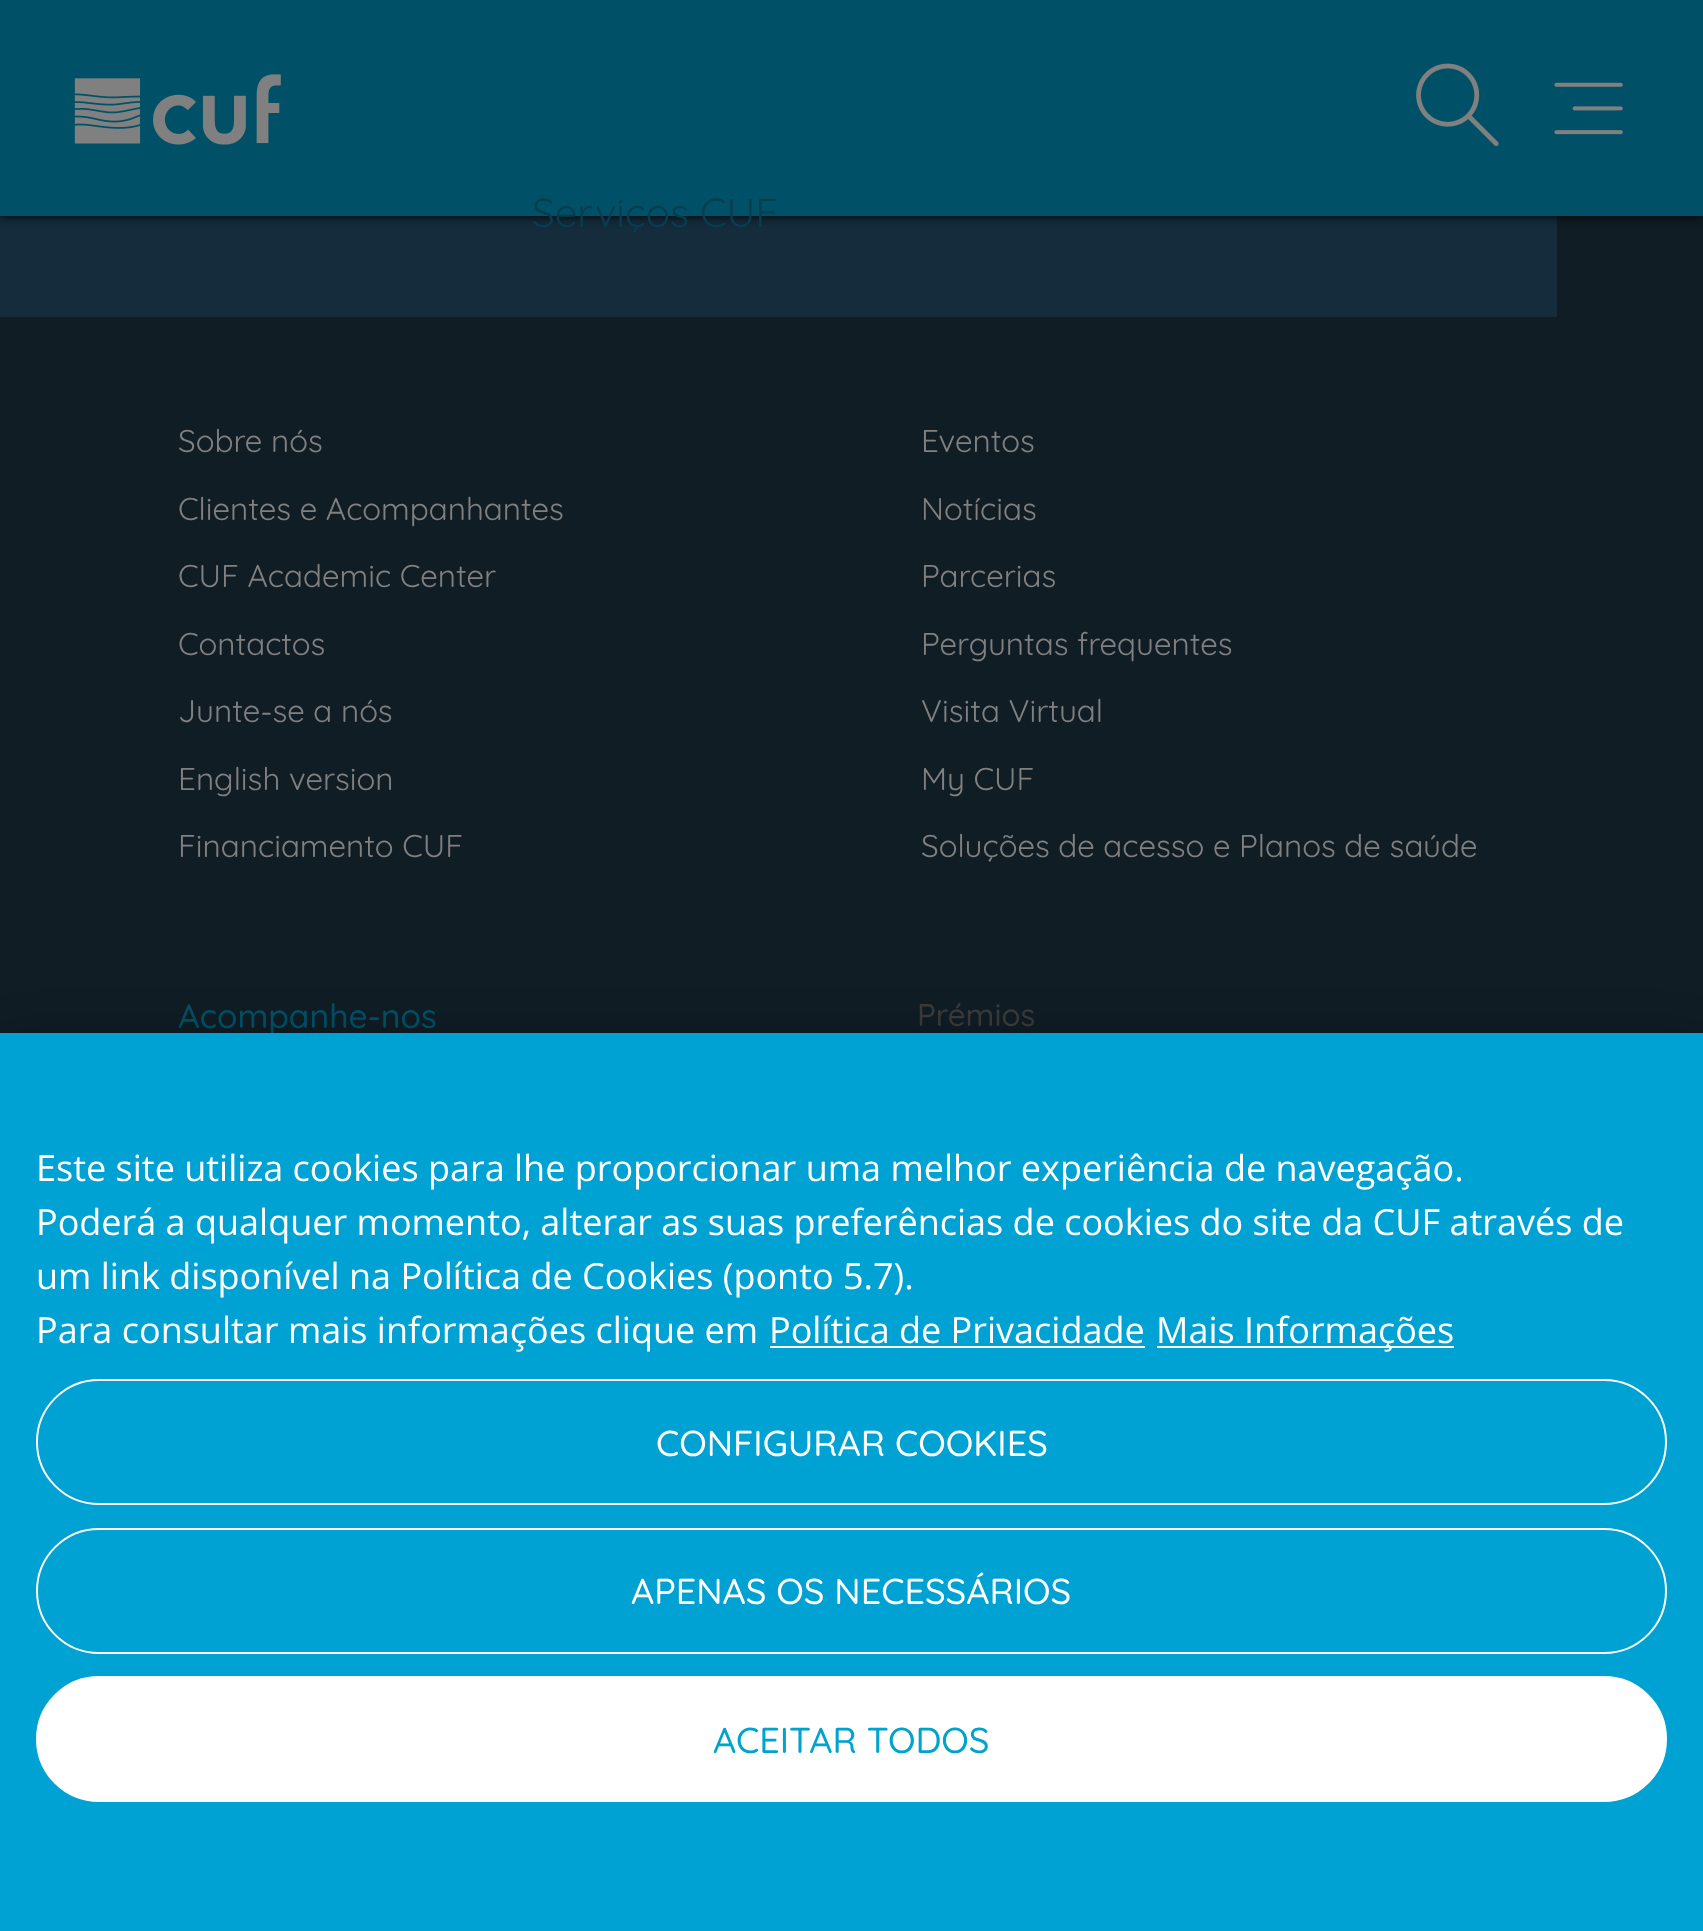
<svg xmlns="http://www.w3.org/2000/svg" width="1703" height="1931">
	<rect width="100%" height="100%" fill="#101D25" />
	<rect x="0" y="216" width="1557" height="101" fill="#142C3C" />
	<rect x="0" y="0" width="1703" height="216" fill="#000000" filter="blur(5.5px)" />
	<rect x="0" y="0" width="1703" height="216" fill="#005167" />
	<image x="74" y="74" width="207" height="71" href="assets/img1.png" />
	<image x="1416" y="63" width="83" height="84" href="assets/img2.png" />
	<image x="1554" y="82" width="69" height="53" href="assets/img3.png" />
	<text x="532" y="227" font-family="Quicksand" font-size="40.5" font-weight="300" fill="#083D4F">Serviços CUF</text>
	<g font-family="Quicksand" font-size="31.5" font-weight="300" fill="#808080">
		<text x="178" y="452">Sobre nós</text>
		<text x="921" y="452">Eventos</text>
		<text x="178" y="520">Clientes e Acompanhantes</text>
		<text x="921" y="520">Notícias</text>
		<text x="178" y="587">CUF Academic Center</text>
		<text x="921" y="587">Parcerias</text>
		<text x="178" y="655">Contactos</text>
		<text x="921" y="655">Perguntas frequentes</text>
		<text x="178" y="722">Junte-se a nós</text>
		<text x="921" y="722">Visita Virtual</text>
		<text x="178" y="790">English version</text>
		<text x="921" y="790">My CUF</text>
		<text x="178" y="857">Financiamento CUF</text>
		<text x="921" y="857">Soluções de acesso e Planos de saúde</text>
	</g>
	<text x="178" y="1028" font-family="'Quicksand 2'" font-size="33.75" font-weight="300" fill="#005167">Acompanhe-nos</text>
	<text x="917" y="1026" font-family="'Quicksand 2'" font-size="31.5" font-weight="300" fill="#3B3B3B">Prémios</text>
	<rect x="0" y="1033" width="1703" height="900" fill="#000000" fill-opacity="0.2" filter="blur(20px)" />
	<rect x="0" y="1033" width="1703" height="898" fill="#00A2D4" />
	<g font-family="Open Sans" font-size="36" fill="#FFFFFF">
		<text x="36" y="1181">Este site utiliza cookies para lhe proporcionar uma melhor experiência de navegação.</text>
		<text x="36" y="1235">Poderá a qualquer momento, alterar as suas preferências de cookies do site da CUF através de</text>
		<text x="36" y="1289">um link disponível na Política de Cookies (ponto 5.7).</text>
		<text x="36" y="1343">Para consultar mais informações clique em</text>
		<text x="769" y="1343">Política de Privacidade</text>
	</g>
	<rect x="770" y="1346" width="375" height="2" fill="#FFFFFF" />
	<rect x="1157" y="1346" width="297" height="2" fill="#FFFFFF" />
	<text x="1156" y="1343" font-family="Open Sans" font-size="36" fill="#FFFFFF">Mais Informações</text>
	<rect x="37" y="1380" width="1629" height="124" rx="62" fill="none" stroke="#FFFFFF" stroke-width="2" />
	<text x="656" y="1456" font-family="'Quicksand 2'" font-size="36" font-weight="300" fill="#FFFFFF">CONFIGURAR COOKIES</text>
	<rect x="37" y="1529" width="1629" height="124" rx="62" fill="none" stroke="#FFFFFF" stroke-width="2" />
	<text x="631" y="1604" font-family="'Quicksand 2'" font-size="36" font-weight="300" fill="#FFFFFF">APENAS OS NECESSÁRIOS</text>
	<rect x="37" y="1677" width="1629" height="124" rx="62" fill="#FFFFFF" stroke="#FFFFFF" stroke-width="2" />
	<text x="713" y="1753" font-family="'Quicksand 2'" font-size="36" font-weight="300" fill="#00A2CE">ACEITAR TODOS</text>
</svg>
